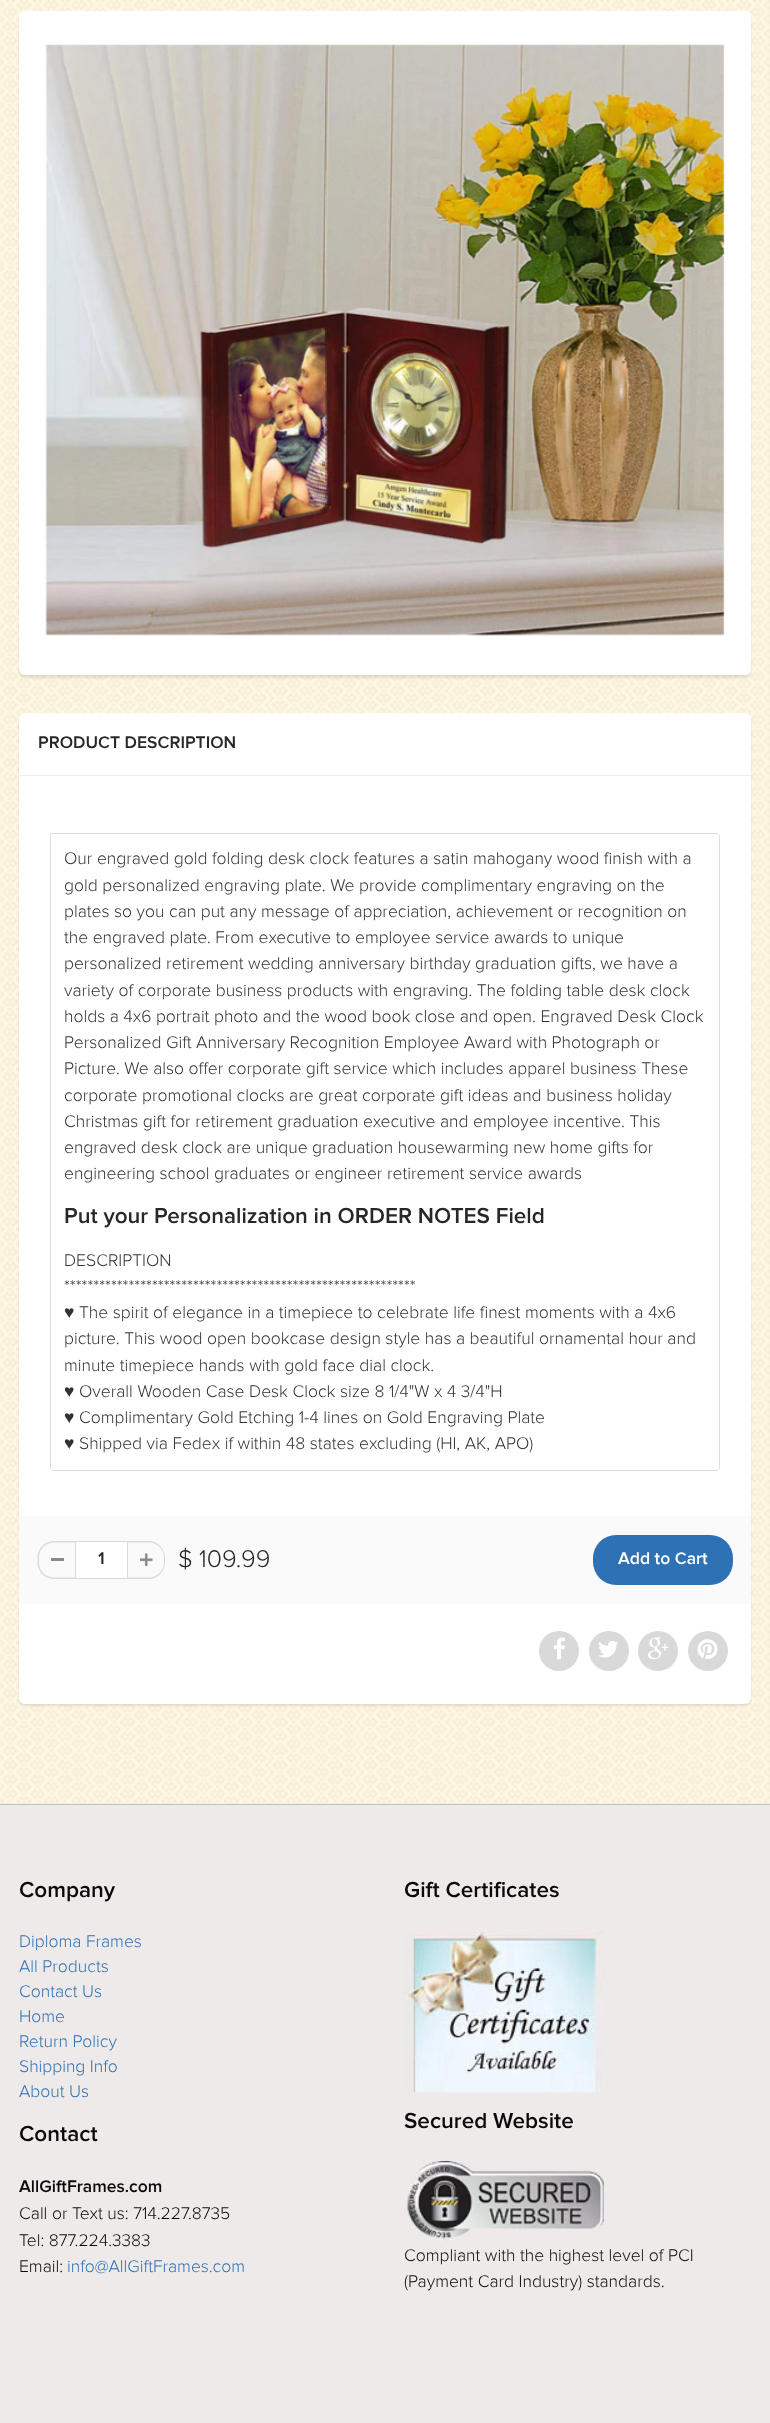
<svg xmlns="http://www.w3.org/2000/svg" width="770" height="2423">
	<rect width="100%" height="100%" fill="#EBE5E2" />
	<image x="0" y="0" width="770" height="1804" href="assets/img1.png" />
	<rect x="19" y="14" width="732" height="664" rx="6" fill="#0B191C" fill-opacity="0.1" filter="blur(1px)" />
	<rect x="19" y="11" width="732" height="664" rx="6" fill="#FFFFFF" />
	<image x="45" y="44" width="680" height="592" href="assets/img2.png" />
	<rect x="19" y="715" width="732" height="991" rx="6" fill="#0B191C" fill-opacity="0.1" filter="blur(1px)" />
	<rect x="19" y="713" width="732" height="991" rx="6" fill="#FFFFFF" />
	<rect x="19" y="775" width="732" height="1" fill="#EFEFEF" />
	<text x="38" y="748" font-family="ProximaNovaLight" font-size="17.5" font-weight="600" fill="#282727">PRODUCT DESCRIPTION</text>
	<path d="M50.5 833.5H716C718 833.5 719.5 835 719.5 837V1467C719.5 1469 718 1470.5 716 1470.5H54C52 1470.5 50.5 1469 50.5 1467Z" fill="none" stroke="#DDDDDD" />
	<g font-family="ProximaNovaLight" font-size="17.5" font-weight="300" fill="#333333">
		<text x="64" y="864">Our engraved gold folding desk clock features a satin mahogany wood finish with a</text>
		<text x="64" y="891">gold personalized engraving plate. We provide complimentary engraving on the</text>
		<text x="64" y="917">plates so you can put any message of appreciation, achievement or recognition on</text>
		<text x="64" y="943">the engraved plate. From executive to employee service awards to unique</text>
		<text x="64" y="969">personalized retirement wedding anniversary birthday graduation gifts, we have a</text>
		<text x="64" y="996">variety of corporate business products with engraving. The folding table desk clock</text>
		<text x="64" y="1022">holds a 4x6 portrait photo and the wood book close and open. Engraved Desk Clock</text>
		<text x="64" y="1048">Personalized Gift Anniversary Recognition Employee Award with Photograph or</text>
		<text x="64" y="1074">Picture. We also offer corporate gift service which includes apparel business These</text>
		<text x="64" y="1101">corporate promotional clocks are great corporate gift ideas and business holiday</text>
		<text x="64" y="1127">Christmas gift for retirement graduation executive and employee incentive. This</text>
		<text x="64" y="1153">engraved desk clock are unique graduation housewarming new home gifts for</text>
		<text x="64" y="1179">engineering school graduates or engineer retirement service awards</text>
	</g>
	<text x="64" y="1223" font-family="ProximaNovaLight" font-size="22.5" font-weight="600" fill="#282727">Put your Personalization in ORDER NOTES Field</text>
	<g font-family="ProximaNovaLight" font-size="17.5" font-weight="300" fill="#333333">
		<text x="64" y="1266">DESCRIPTION</text>
		<text x="64" y="1292">************************************************************</text>
	</g>
	<text x="64" y="1318" font-family="Liberation Sans" font-size="17.5" fill="#333333">♥</text>
	<g font-family="ProximaNovaLight" font-size="17.5" font-weight="300" fill="#333333">
		<text x="79" y="1318">The spirit of elegance in a timepiece to celebrate life finest moments with a 4x6</text>
		<text x="64" y="1344">picture. This wood open bookcase design style has a beautiful ornamental hour and</text>
		<text x="64" y="1371">minute timepiece hands with gold face dial clock.</text>
	</g>
	<text x="64" y="1397" font-family="Liberation Sans" font-size="17.5" fill="#333333">♥</text>
	<text x="79" y="1397" font-family="ProximaNovaLight" font-size="17.5" font-weight="300" fill="#333333">Overall Wooden Case Desk Clock size 8 1/4"W x 4 3/4"H</text>
	<text x="64" y="1423" font-family="Liberation Sans" font-size="17.5" fill="#333333">♥</text>
	<text x="79" y="1423" font-family="ProximaNovaLight" font-size="17.5" font-weight="300" fill="#333333">Complimentary Gold Etching 1-4 lines on Gold Engraving Plate</text>
	<text x="64" y="1449" font-family="Liberation Sans" font-size="17.5" fill="#333333">♥</text>
	<text x="79" y="1449" font-family="ProximaNovaLight" font-size="17.5" font-weight="300" fill="#333333">Shipped via Fedex if within 48 states excluding (HI, AK, APO)</text>
	<rect x="19" y="1516" width="732" height="88" fill="#FAFAFA" />
	<rect x="51" y="1558" width="13" height="3" fill="#898989" />
	<path d="M54 1541H75V1579H54C45 1579 37.5 1571.5 37.5 1562.5V1557.5C37.5 1548.5 45 1541 54 1541ZM54 1542.5H75V1577.5H54C45.5 1577.5 39 1571 39 1562.5V1557.5C39 1549 45.5 1542.5 54 1542.5Z" fill="#D7DBDB" fill-rule="evenodd" />
	<rect x="75.5" y="1541.5" width="52" height="37" fill="#FFFFFF" stroke="#D7DBDB" />
	<text x="98" y="1564" font-family="ProximaNovaLight" font-size="17.5" font-weight="600" fill="#282727">1</text>
	<image x="140" y="1553" width="13" height="13" href="assets/img3.png" />
	<path d="M127.5 1541H149C157.5 1541 165 1548.5 165 1557.5V1562.5C165 1571.5 157.5 1579 149 1579H127.5ZM127.5 1542.5H149C157 1542.5 164 1549 164 1557.5V1562.5C164 1571 157 1577.5 149 1577.5H127.5Z" fill="#D7DBDB" fill-rule="evenodd" />
	<text x="178" y="1567" font-family="ProximaNovaLight" font-size="25" font-weight="300" fill="#282727">$ 109.99</text>
	<rect x="593" y="1535" width="140" height="50" rx="23" fill="#2E72B5" />
	<text x="618" y="1564" font-family="ProximaNovaLight" font-size="17.5" font-weight="600" fill="#FFFFFF">Add to Cart</text>
	<circle cx="559" cy="1651" r="20" fill="#D9D9D9" />
	<image x="553" y="1637" width="12" height="23" href="assets/img4.png" />
	<circle cx="609" cy="1651" r="20" fill="#D9D9D9" />
	<image x="598" y="1640" width="21" height="18" href="assets/img5.png" />
	<circle cx="658" cy="1651" r="20" fill="#D9D9D9" />
	<image x="648" y="1637" width="21" height="23" href="assets/img6.png" />
	<circle cx="708" cy="1651" r="20" fill="#D9D9D9" />
	<image x="697" y="1639" width="21" height="21" href="assets/img7.png" />
	<rect x="0" y="1805" width="770" height="618" fill="#EEEAEA" />
	<rect x="0" y="1804" width="770" height="1" fill="#C3C4C4" />
	<text x="19" y="1897" font-family="ProximaNovaLight" font-size="22.5" font-weight="600" fill="#0B0A0A">Company</text>
	<g font-family="ProximaNovaLight" font-size="17.5" font-weight="300" fill="#2E72B5">
		<text x="19" y="1947">Diploma Frames</text>
		<text x="19" y="1972">All Products</text>
		<text x="19" y="1997">Contact Us</text>
		<text x="19" y="2022">Home</text>
		<text x="19" y="2047">Return Policy</text>
		<text x="19" y="2072">Shipping Info</text>
		<text x="19" y="2097">About Us</text>
	</g>
	<text x="19" y="2141" font-family="ProximaNovaLight" font-size="22.5" font-weight="600" fill="#0B0A0A">Contact</text>
	<text x="19" y="2192" font-family="ProximaNovaLight" font-size="17.5" font-weight="600" fill="#0B0A0A">AllGiftFrames.com</text>
	<g font-family="ProximaNovaLight" font-size="17.5" font-weight="300" fill="#0B0A0A">
		<text x="19" y="2219">Call or Text us: 714.227.8735</text>
		<text x="19" y="2246">Tel: 877.224.3383</text>
		<text x="19" y="2272">Email:</text>
	</g>
	<text x="67" y="2272" font-family="ProximaNovaLight" font-size="17.5" font-weight="300" fill="#2E72B5">info@AllGiftFrames.com</text>
	<text x="404" y="1897" font-family="ProximaNovaLight" font-size="22.5" font-weight="600" fill="#0B0A0A">Gift Certificates</text>
	<image x="404" y="1930" width="200" height="163" href="assets/img8.png" />
	<text x="404" y="2128" font-family="ProximaNovaLight" font-size="22.5" font-weight="600" fill="#0B0A0A">Secured Website</text>
	<image x="404" y="2161" width="200" height="80" href="assets/img9.png" />
	<g font-family="ProximaNovaLight" font-size="17.5" font-weight="300" fill="#0B0A0A">
		<text x="404" y="2261">Compliant with the highest level of PCI</text>
		<text x="404" y="2287">(Payment Card Industry) standards.</text>
	</g>
</svg>
